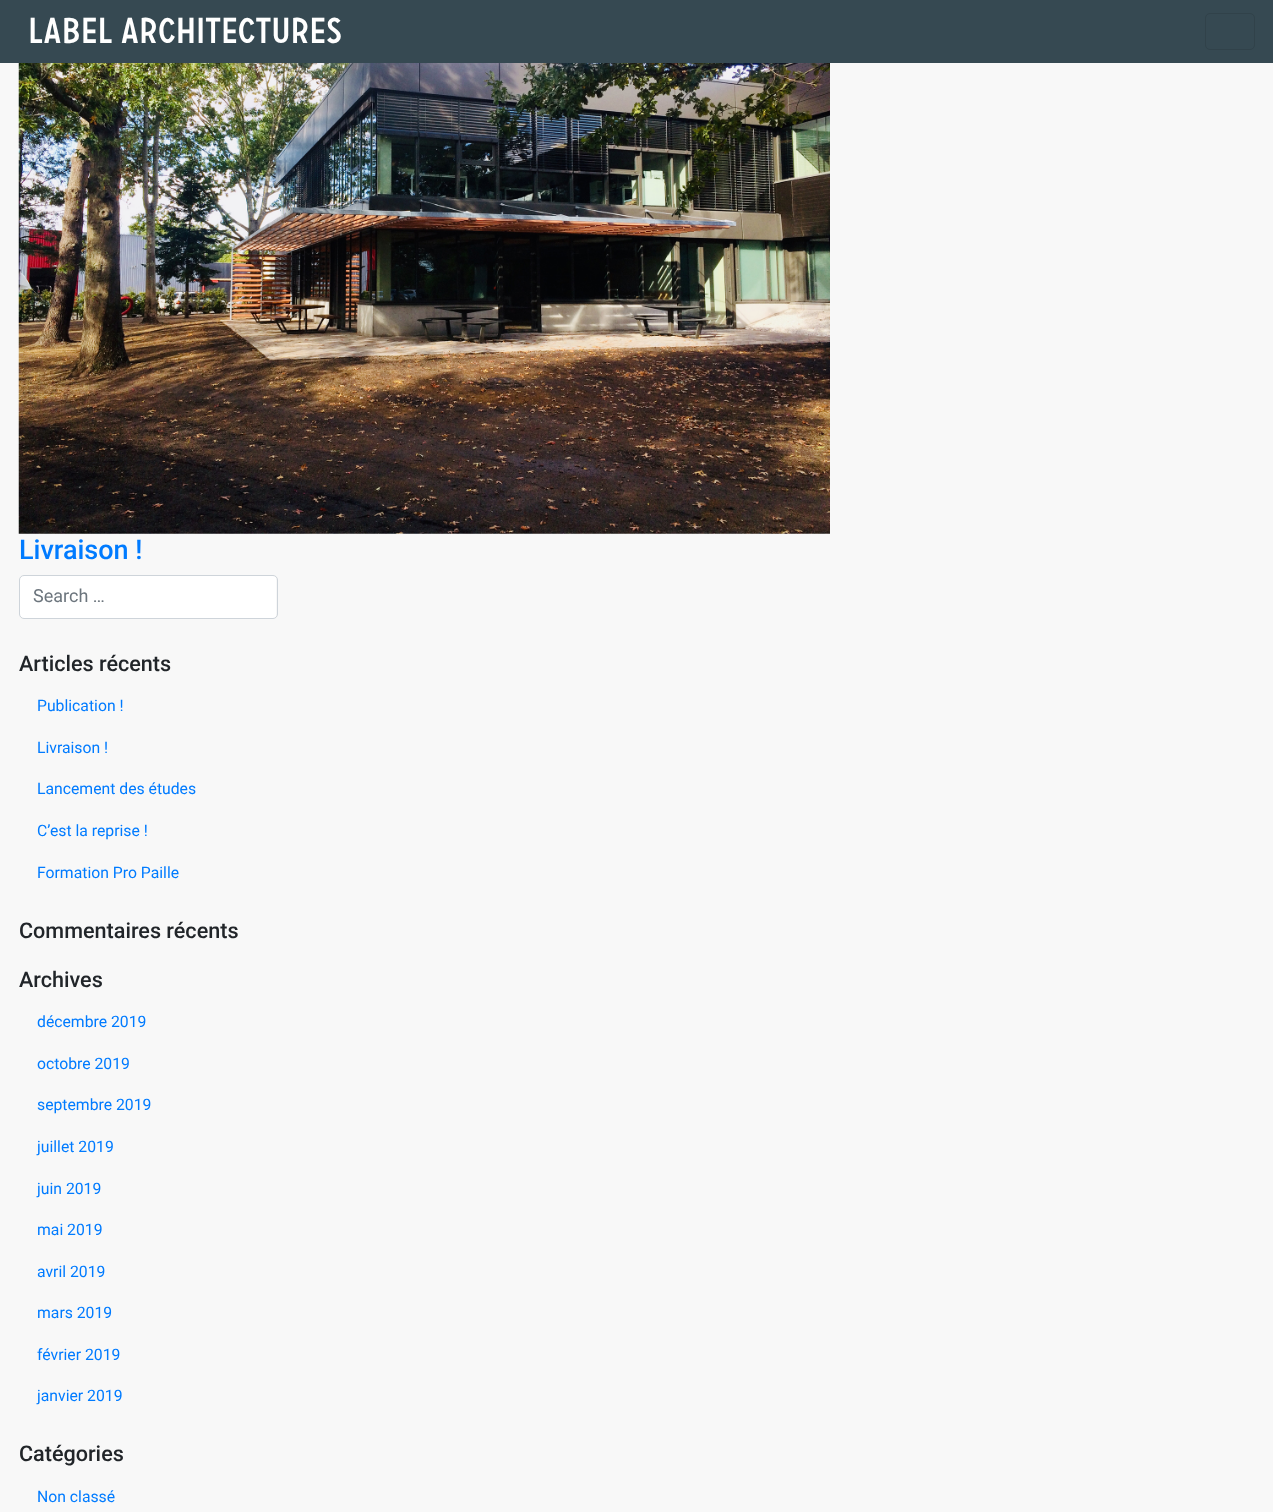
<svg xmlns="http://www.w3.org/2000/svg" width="1273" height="1512">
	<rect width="100%" height="100%" fill="#F8F8F8" />
	<rect x="0" y="0" width="1273" height="63" fill="#364952" />
	<text x="28" y="43" font-family="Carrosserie" font-size="36" fill="#FFFFFF">Label Architectures</text>
	<rect x="1205.5" y="13.5" width="49" height="36" rx="4.5" fill="none" stroke="#31424A" />
	<image x="18" y="63" width="812" height="471" href="assets/img1.png" />
	<text x="19" y="559" font-family="Roboto" font-size="27" font-weight="500" fill="#007BFF">Livraison !</text>
	<rect x="20" y="576" width="256" height="42" rx="3" fill="#FFFFFF" />
	<rect x="19.5" y="575.5" width="258" height="43" rx="4.5" fill="none" stroke="#CED4DA" />
	<text x="33" y="602" font-family="Roboto" font-size="18" fill="#6C757D">Search …</text>
	<text x="19" y="671" font-family="Roboto" font-size="21.6" font-weight="500" fill="#212529">Articles récents</text>
	<g font-family="Roboto" font-size="15.75" fill="#007BFF">
		<text x="37" y="711">Publication !</text>
		<text x="37" y="753">Livraison !</text>
		<text x="37" y="794">Lancement des études</text>
		<text x="37" y="836">C’est la reprise !</text>
		<text x="37" y="878">Formation Pro Paille</text>
	</g>
	<g font-family="Roboto" font-size="21.6" font-weight="500" fill="#212529">
		<text x="19" y="938">Commentaires récents</text>
		<text x="19" y="987">Archives</text>
	</g>
	<g font-family="Roboto" font-size="15.75" fill="#007BFF">
		<text x="37" y="1027">décembre 2019</text>
		<text x="37" y="1069">octobre 2019</text>
		<text x="37" y="1110">septembre 2019</text>
		<text x="37" y="1152">juillet 2019</text>
		<text x="37" y="1194">juin 2019</text>
		<text x="37" y="1235">mai 2019</text>
		<text x="37" y="1277">avril 2019</text>
		<text x="37" y="1318">mars 2019</text>
		<text x="37" y="1360">février 2019</text>
		<text x="37" y="1401">janvier 2019</text>
	</g>
	<text x="19" y="1461" font-family="Roboto" font-size="21.6" font-weight="500" fill="#212529">Catégories</text>
	<text x="37" y="1502" font-family="Roboto" font-size="15.75" fill="#007BFF">Non classé</text>
</svg>
